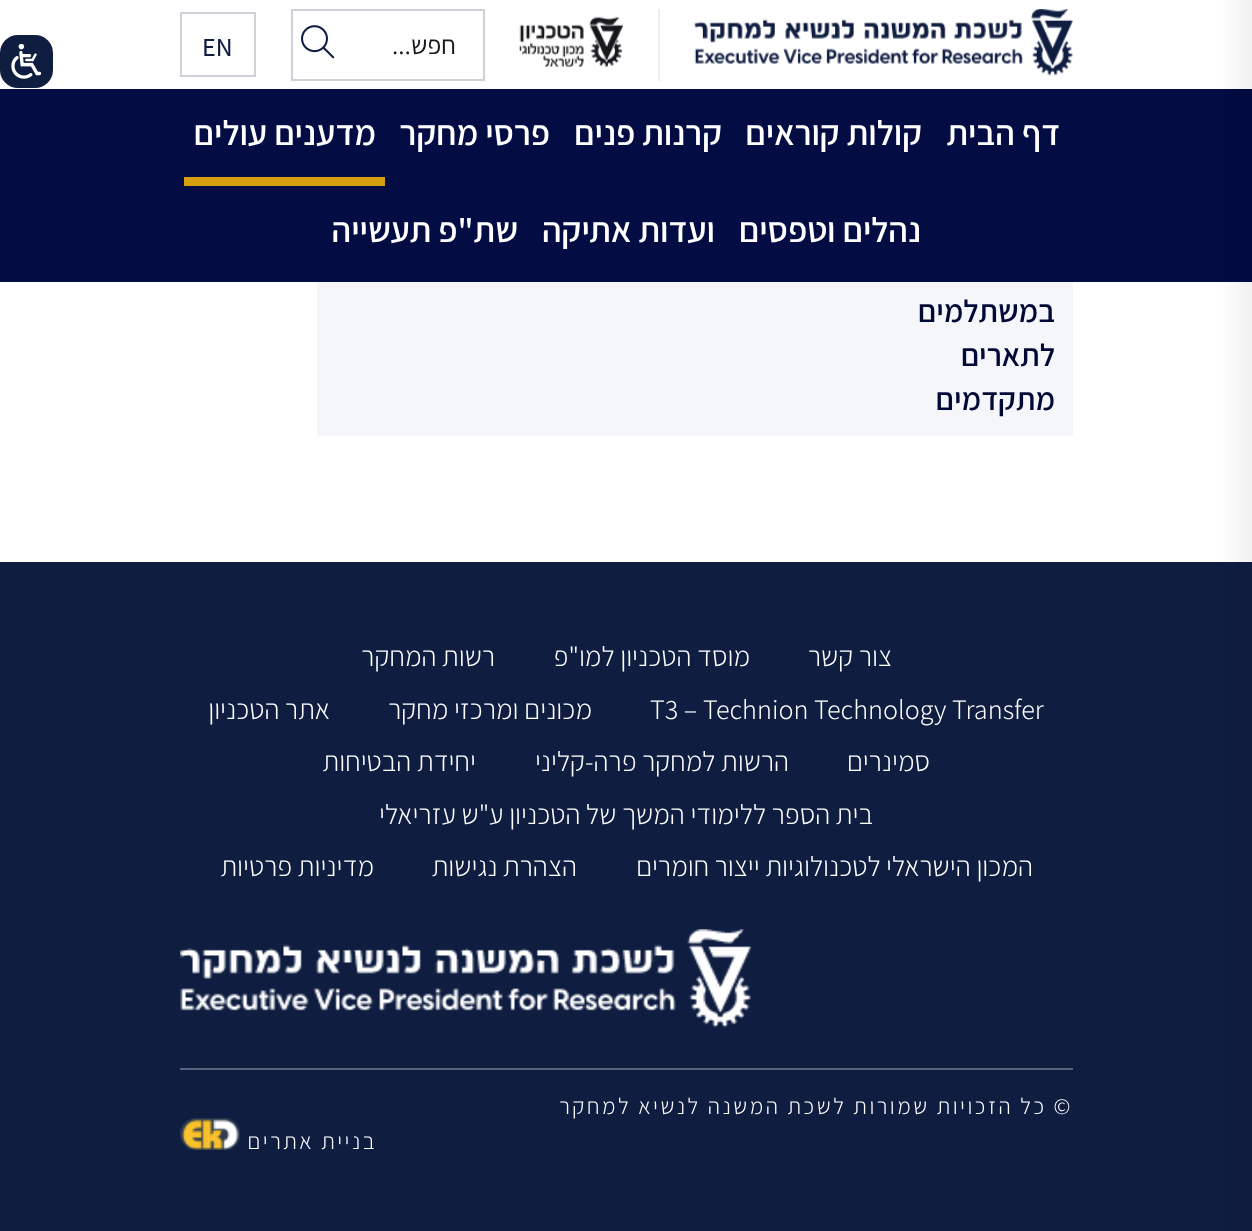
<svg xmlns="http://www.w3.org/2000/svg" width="1252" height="1231">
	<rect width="100%" height="100%" fill="#FFFFFF" />
	<rect x="0" y="89" width="1252" height="193" fill="#030C43" />
	<rect x="0" y="562" width="1252" height="669" fill="#0F1D41" />
	<rect x="1234" y="-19" width="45" height="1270" fill="#000000" fill-opacity="0.05" filter="blur(9px)" />
	<rect x="658" y="9" width="2" height="72" fill="#EEEEEE" />
	<image x="694" y="9" width="379" height="67" href="assets/img1.png" />
	<image x="519" y="16" width="104" height="51" href="assets/img2.png" />
	<rect x="292" y="10" width="192" height="70" fill="none" stroke="#CFD1D9" stroke-width="2" />
	<text x="456" y="54" font-family="Assistant" font-size="26" direction="rtl" fill="#19171C">חפש...</text>
	<image x="301" y="25" width="34" height="34" href="assets/img3.png" />
	<rect x="181" y="13" width="74" height="63" fill="none" stroke="#CFD1D9" stroke-width="2" />
	<text x="202" y="56" font-family="Assistant" font-size="26" font-weight="500" fill="#0F1D41">EN</text>
	<g font-family="Assistant" font-size="35" font-weight="600" direction="rtl" fill="#FFFFFF">
		<text x="1060" y="145">דף הבית</text>
		<text x="922" y="145">קולות קוראים</text>
		<text x="722" y="145">קרנות פנים</text>
		<text x="550" y="145">פרסי מחקר</text>
	</g>
	<rect x="184" y="177" width="201" height="9" fill="#D59F0F" />
	<g font-family="Assistant" font-size="35" font-weight="600" direction="rtl" fill="#FFFFFF">
		<text x="376" y="145">מדענים עולים</text>
		<text x="921" y="242">נהלים וטפסים</text>
		<text x="715" y="242">ועדות אתיקה</text>
		<text x="518" y="242">שת"פ תעשייה</text>
	</g>
	<rect x="317" y="282" width="756" height="154" fill="#F5F6F9" />
	<g font-family="Assistant" font-size="31.5" font-weight="600" direction="rtl" fill="#010937">
		<text x="1055" y="322">במשתלמים</text>
		<text x="1055" y="366">לתארים</text>
		<text x="1055" y="410">מתקדמים</text>
	</g>
	<g font-family="Assistant" font-size="28" font-weight="300" direction="rtl" fill="#FFFFFF">
		<text x="892" y="666">צור קשר</text>
		<text x="750" y="666">מוסד הטכניון למו"פ</text>
		<text x="495" y="666">רשות המחקר</text>
	</g>
	<text x="650" y="719" font-family="Assistant" font-size="28" font-weight="300" fill="#FFFFFF">T3 – Technion Technology Transfer</text>
	<g font-family="Assistant" font-size="28" font-weight="300" direction="rtl" fill="#FFFFFF">
		<text x="592" y="719">מכונים ומרכזי מחקר</text>
		<text x="330" y="719">אתר הטכניון</text>
		<text x="930" y="771">סמינרים</text>
		<text x="789" y="771">הרשות למחקר פרה-קליני</text>
		<text x="476" y="771">יחידת הבטיחות</text>
		<text x="873" y="824">בית הספר ללימודי המשך של הטכניון ע"ש עזריאלי</text>
		<text x="1033" y="876">המכון הישראלי לטכנולוגיות ייצור חומרים</text>
		<text x="577" y="876">הצהרת נגישות</text>
		<text x="374" y="876">מדיניות פרטיות</text>
	</g>
	<image x="180" y="929" width="571" height="99" href="assets/img4.png" />
	<rect x="180" y="1068" width="893" height="2" fill="#57617A" />
	<g font-family="Assistant" font-size="22.75" font-weight="300" letter-spacing="2.5" direction="rtl" fill="#FFFFFF">
		<text x="1073" y="1114">© כל הזכויות שמורות לשכת המשנה לנשיא למחקר</text>
		<text x="377" y="1149">בניית אתרים</text>
	</g>
	<image x="180" y="1118" width="60" height="32" href="assets/img5.png" />
	<rect x="0" y="35" width="53" height="53" rx="18" fill="#0F1D41" />
	<image x="11" y="44" width="30" height="35" href="assets/img6.png" />
</svg>
